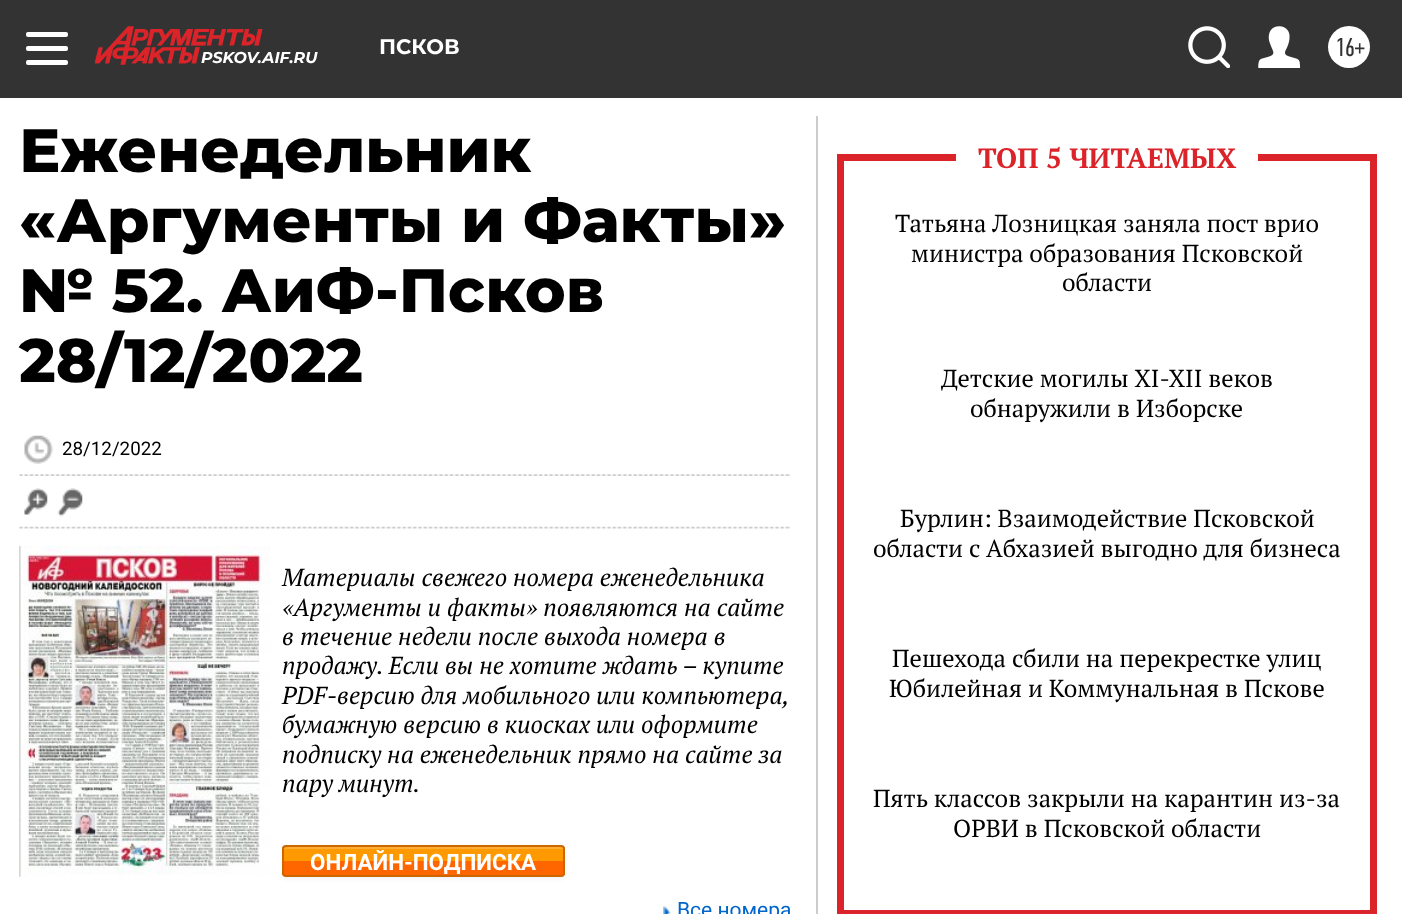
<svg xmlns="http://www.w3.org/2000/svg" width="1402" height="914">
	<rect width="100%" height="100%" fill="#FFFFFF" />
	<rect x="0" y="0" width="1402" height="98" fill="#333333" />
	<rect x="26" y="32" width="42" height="5" rx="2" fill="#FFFFFF" />
	<rect x="26" y="46" width="42" height="5" rx="2" fill="#FFFFFF" />
	<rect x="26" y="60" width="42" height="5" rx="2" fill="#FFFFFF" />
	<text x="379" y="54" font-family="Montserrat" font-size="21" font-weight="700" fill="#FFFFFF">ПСКОВ</text>
	<image x="1188" y="26" width="42" height="42" href="assets/img1.png" />
	<image x="1258" y="26" width="42" height="42" href="assets/img2.png" />
	<circle cx="1349" cy="47" r="21" fill="#FFFFFF" />
	<text x="1335" y="56" font-family="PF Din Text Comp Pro" font-size="26" fill="#333333">16+</text>
	<image x="95" y="26" width="168" height="39" href="assets/img3.png" />
	<text x="201" y="63" font-family="Montserrat" font-size="15.75" font-weight="700" font-style="italic" fill="#FFFFFF">PSKOV.AIF.RU</text>
	<rect x="816" y="116" width="2" height="798" fill="#CCCCCC" />
	<g font-family="Montserrat" font-size="61.25" font-weight="800" fill="#000000">
		<text x="19" y="172">Еженедельник</text>
		<text x="19" y="242">«Аргументы и Факты»</text>
		<text x="19" y="312">№ 52. АиФ-Псков</text>
		<text x="19" y="382">28/12/2022</text>
	</g>
	<image x="19" y="474" width="772" height="2" href="assets/img4.png" />
	<image x="24" y="435" width="29" height="29" href="assets/img5.png" />
	<text x="62" y="455" font-family="Roboto" font-size="18.75" fill="#000000">28/12/2022</text>
	<image x="19" y="526" width="772" height="3" href="assets/img6.png" />
	<image x="24" y="488" width="24" height="27" href="assets/img7.png" />
	<image x="57" y="488" width="26" height="29" href="assets/img8.png" />
	<image x="19" y="546" width="251" height="331" href="assets/img9.png" />
	<g font-family="PT Serif" font-size="24.5" font-style="italic" fill="#000000">
		<text x="282" y="586">Материалы свежего номера еженедельника</text>
		<text x="282" y="616">«Аргументы и факты» появляются на сайте</text>
		<text x="282" y="645">в течение недели после выхода номера в</text>
		<text x="282" y="674">продажу. Если вы не хотите ждать – купите</text>
		<text x="282" y="704">PDF-версию для мобильного или компьютера,</text>
		<text x="282" y="733">бумажную версию в киосках или оформите</text>
		<text x="282" y="763">подписку на еженедельник прямо на сайте за</text>
		<text x="282" y="792">пару минут.</text>
	</g>
	<rect x="282" y="847" width="283" height="32" rx="4" fill="#000000" fill-opacity="0.05" filter="blur(2px)" />
	<rect x="282" y="847" width="283" height="14" fill="#FF9900" />
	<rect x="282" y="861" width="283" height="14" fill="#FF6600" />
	<path d="M285 849H562C563 849 564 850 564 850C564 849 564 847 562 847H286L284 848V850Z" fill="#FFAD33" />
	<rect x="283" y="846" width="281" height="30" rx="3" fill="none" stroke="#CC6600" stroke-width="2" />
	<text x="310" y="870" font-family="Roboto" font-size="22.4" font-weight="700" fill="#FFFFFF">ОНЛАЙН-ПОДПИСКА</text>
	<image x="663" y="906" width="8" height="8" href="assets/img10.png" />
	<text x="677" y="917" font-family="Roboto" font-size="21" fill="#0066CC">Все номера</text>
	<rect x="1370" y="154" width="7" height="760" fill="#DA2429" />
	<rect x="837" y="910" width="540" height="4" fill="#DA2429" />
	<rect x="837" y="154" width="7" height="760" fill="#DA2429" />
	<rect x="837" y="154" width="119" height="7" fill="#DA2429" />
	<text x="978" y="168" font-family="PT Serif" font-size="28" font-weight="700" fill="#DA2429">ТОП 5 ЧИТАЕМЫХ</text>
	<rect x="1258" y="154" width="119" height="7" fill="#DA2429" />
	<g font-family="PT Serif" font-size="24.5" fill="#000000">
		<text x="895" y="232">Татьяна Лозницкая заняла пост врио</text>
		<text x="911" y="262">министра образования Псковской</text>
		<text x="1062" y="291">области</text>
		<text x="941" y="387">Детские могилы XI-XII веков</text>
		<text x="970" y="417">обнаружили в Изборске</text>
		<text x="900" y="527">Бурлин: Взаимодействие Псковской</text>
		<text x="873" y="557">области с Абхазией выгодно для бизнеса</text>
		<text x="892" y="667">Пешехода сбили на перекрестке улиц</text>
		<text x="889" y="697">Юбилейная и Коммунальная в Пскове</text>
		<text x="873" y="807">Пять классов закрыли на карантин из-за</text>
		<text x="953" y="837">ОРВИ в Псковской области</text>
	</g>
</svg>
